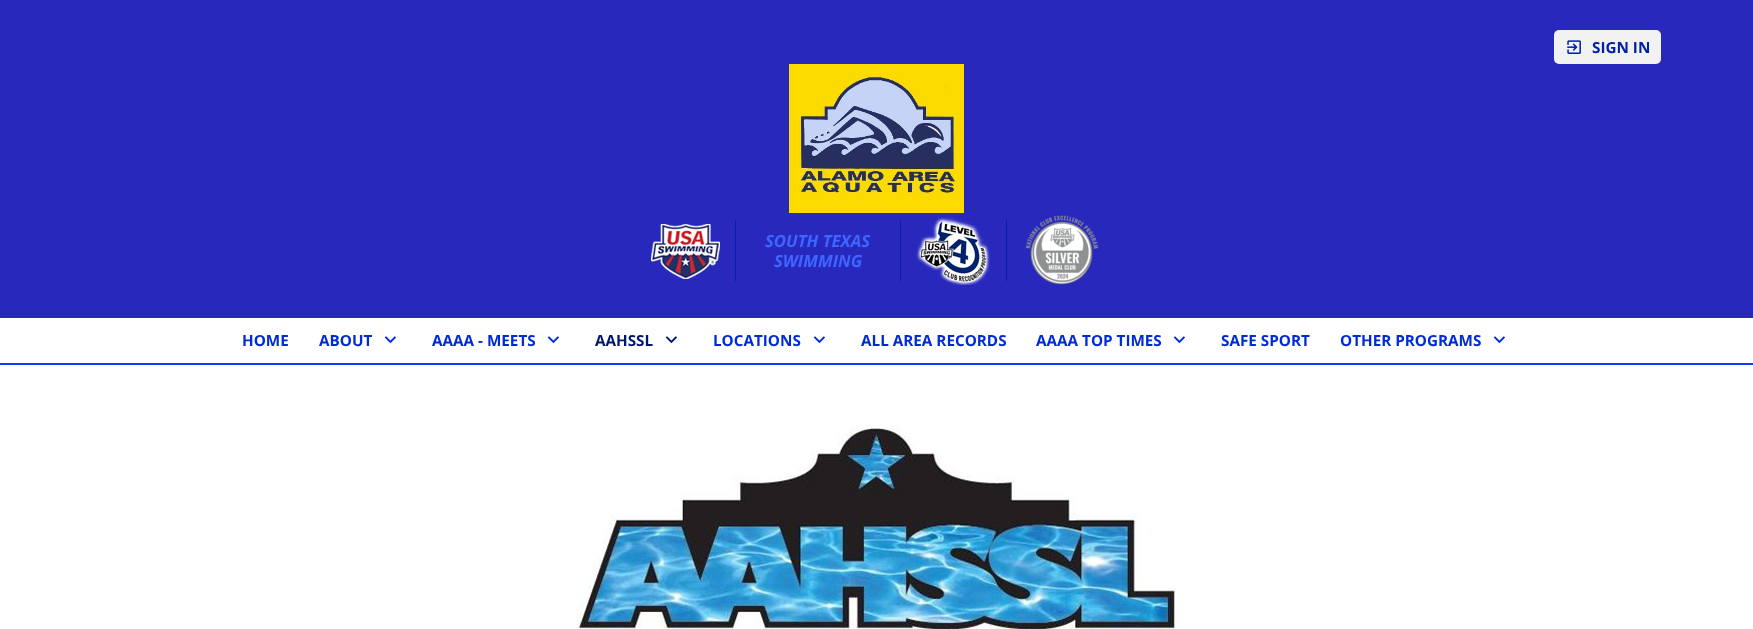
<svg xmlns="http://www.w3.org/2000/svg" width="1753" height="629">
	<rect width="100%" height="100%" fill="#FFFFFF" />
	<rect x="0" y="0" width="1753" height="318" fill="#2828BD" />
	<rect x="1554" y="30" width="107" height="34" rx="5" fill="#F2F2F2" />
	<image x="1567" y="40" width="14" height="14" href="assets/img1.png" />
	<text x="1592" y="53" font-family="Open Sans" font-size="15.25" font-weight="700" fill="#0021A5">SIGN IN</text>
	<image x="789" y="64" width="175" height="149" href="assets/img2.png" />
	<image x="651" y="224" width="69" height="55" href="assets/img3.png" />
	<rect x="735" y="220" width="1" height="61" fill="#0021A5" />
	<g font-family="Open Sans" font-size="16.75" font-weight="700" font-style="italic" fill="#3F65FF">
		<text x="765" y="247">SOUTH TEXAS</text>
		<text x="774" y="267">SWIMMING</text>
	</g>
	<rect x="900" y="220" width="1" height="61" fill="#0021A5" />
	<image x="916" y="217" width="74" height="68" href="assets/img4.png" />
	<rect x="1006" y="220" width="1" height="61" fill="#0021A5" />
	<image x="1025" y="215" width="74" height="70" href="assets/img5.png" />
	<rect x="0" y="363" width="1753" height="2" fill="#0C3DFF" />
	<g font-family="Open Sans" font-size="15.25" font-weight="700" fill="#002BD8">
		<text x="242" y="346">HOME</text>
		<text x="319" y="346">ABOUT</text>
	</g>
	<image x="384" y="336" width="12" height="8" href="assets/img6.png" />
	<text x="432" y="346" font-family="Open Sans" font-size="15.25" font-weight="700" fill="#002BD8">AAAA - MEETS</text>
	<image x="547" y="336" width="12" height="8" href="assets/img6.png" />
	<text x="595" y="346" font-family="Open Sans" font-size="15.25" font-weight="700" fill="#001772">AAHSSL</text>
	<image x="665" y="336" width="12" height="8" href="assets/img7.png" />
	<text x="713" y="346" font-family="Open Sans" font-size="15.25" font-weight="700" fill="#002BD8">LOCATIONS</text>
	<image x="813" y="336" width="12" height="8" href="assets/img6.png" />
	<g font-family="Open Sans" font-size="15.25" font-weight="700" fill="#002BD8">
		<text x="861" y="346">ALL AREA RECORDS</text>
		<text x="1036" y="346">AAAA TOP TIMES</text>
	</g>
	<image x="1173" y="336" width="12" height="8" href="assets/img6.png" />
	<g font-family="Open Sans" font-size="15.25" font-weight="700" fill="#002BD8">
		<text x="1221" y="346">SAFE SPORT</text>
		<text x="1340" y="346">OTHER PROGRAMS</text>
	</g>
	<image x="1493" y="336" width="12" height="8" href="assets/img6.png" />
	<image x="577" y="425" width="600" height="204" href="assets/img8.png" />
</svg>
